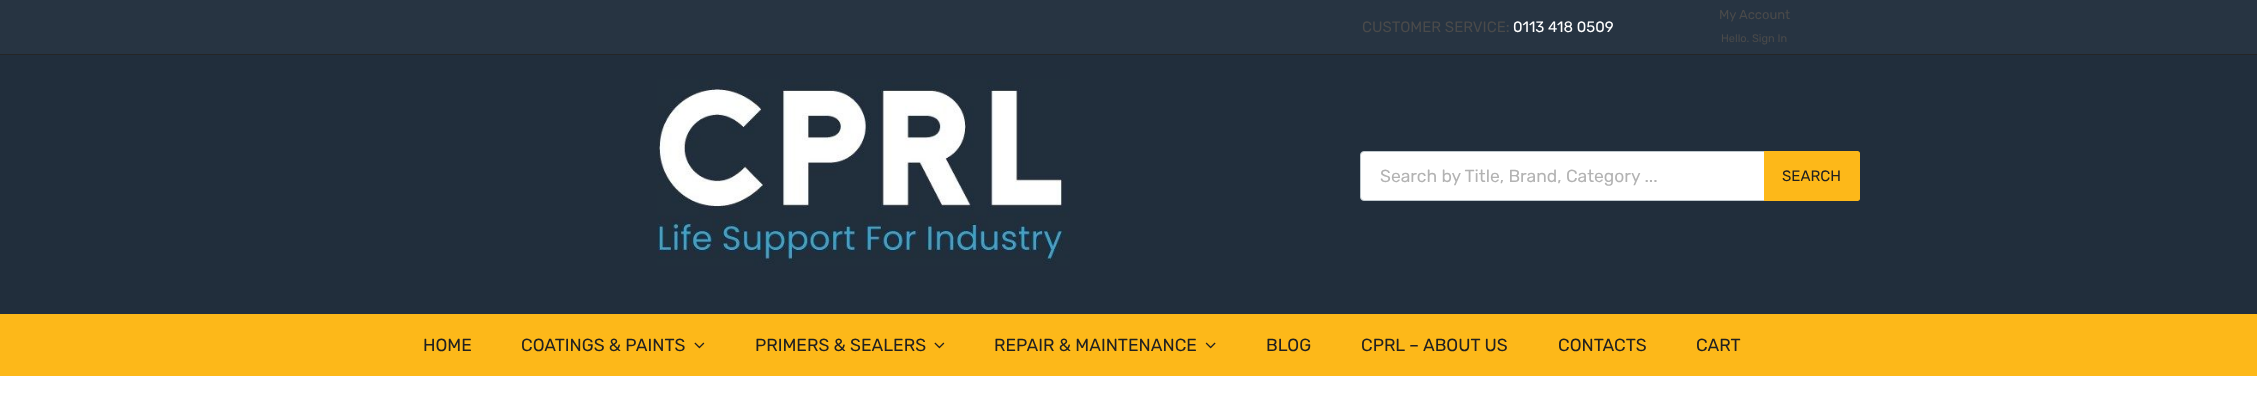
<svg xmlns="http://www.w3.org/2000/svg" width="2257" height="404">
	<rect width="100%" height="100%" fill="#FFFFFF" />
	<rect x="0" y="55" width="2257" height="259" fill="#212E3C" />
	<rect x="0" y="0" width="2257" height="54" fill="#273442" />
	<rect x="0" y="54" width="2257" height="1" fill="#252525" />
	<text x="1362" y="32" font-family="Rubik" font-size="15" font-weight="300" fill="#4A4A4A">CUSTOMER SERVICE:</text>
	<text x="1513" y="32" font-family="Rubik" font-size="15" font-weight="300" fill="#FFFFFF">0113 418 0509</text>
	<text x="1719" y="19" font-family="Rubik" font-size="13" font-weight="300" fill="#4A4A4A">My Account</text>
	<text x="1721" y="42" font-family="Rubik" font-size="11" font-weight="300" fill="#4A4A4A">Hello. Sign In</text>
	<image x="657" y="79" width="413" height="187" href="assets/img1.png" />
	<rect x="1360.5" y="151.5" width="499" height="49" rx="3.5" fill="#FFFFFF" stroke="#BEC8CE" />
	<text x="1380" y="182" font-family="Rubik" font-size="17.5" font-weight="300" fill="#B3B3B3">Search by Title, Brand, Category ...</text>
	<path d="M1764 151H1857.5C1859 151 1860 152 1860 153.5V198.5C1860 200 1859 201 1857.5 201H1764Z" fill="#FDB819" />
	<text x="1782" y="181" font-family="Rubik" font-size="15" font-weight="300" fill="#212121">SEARCH</text>
	<rect x="0" y="314" width="2257" height="62" fill="#FDB819" />
	<g font-family="Rubik" font-size="17.5" font-weight="300" fill="#212121">
		<text x="423" y="351">HOME</text>
		<text x="521" y="351">COATINGS &amp; PAINTS</text>
	</g>
	<image x="694" y="342" width="11" height="7" href="assets/img2.png" />
	<text x="755" y="351" font-family="Rubik" font-size="17.5" font-weight="300" fill="#212121">PRIMERS &amp; SEALERS</text>
	<image x="934" y="342" width="11" height="7" href="assets/img2.png" />
	<text x="994" y="351" font-family="Rubik" font-size="17.5" font-weight="300" fill="#212121">REPAIR &amp; MAINTENANCE</text>
	<image x="1205" y="342" width="11" height="7" href="assets/img3.png" />
	<g font-family="Rubik" font-size="17.5" font-weight="300" fill="#212121">
		<text x="1266" y="351">BLOG</text>
		<text x="1361" y="351">CPRL – ABOUT US</text>
		<text x="1558" y="351">CONTACTS</text>
		<text x="1696" y="351">CART</text>
	</g>
</svg>
